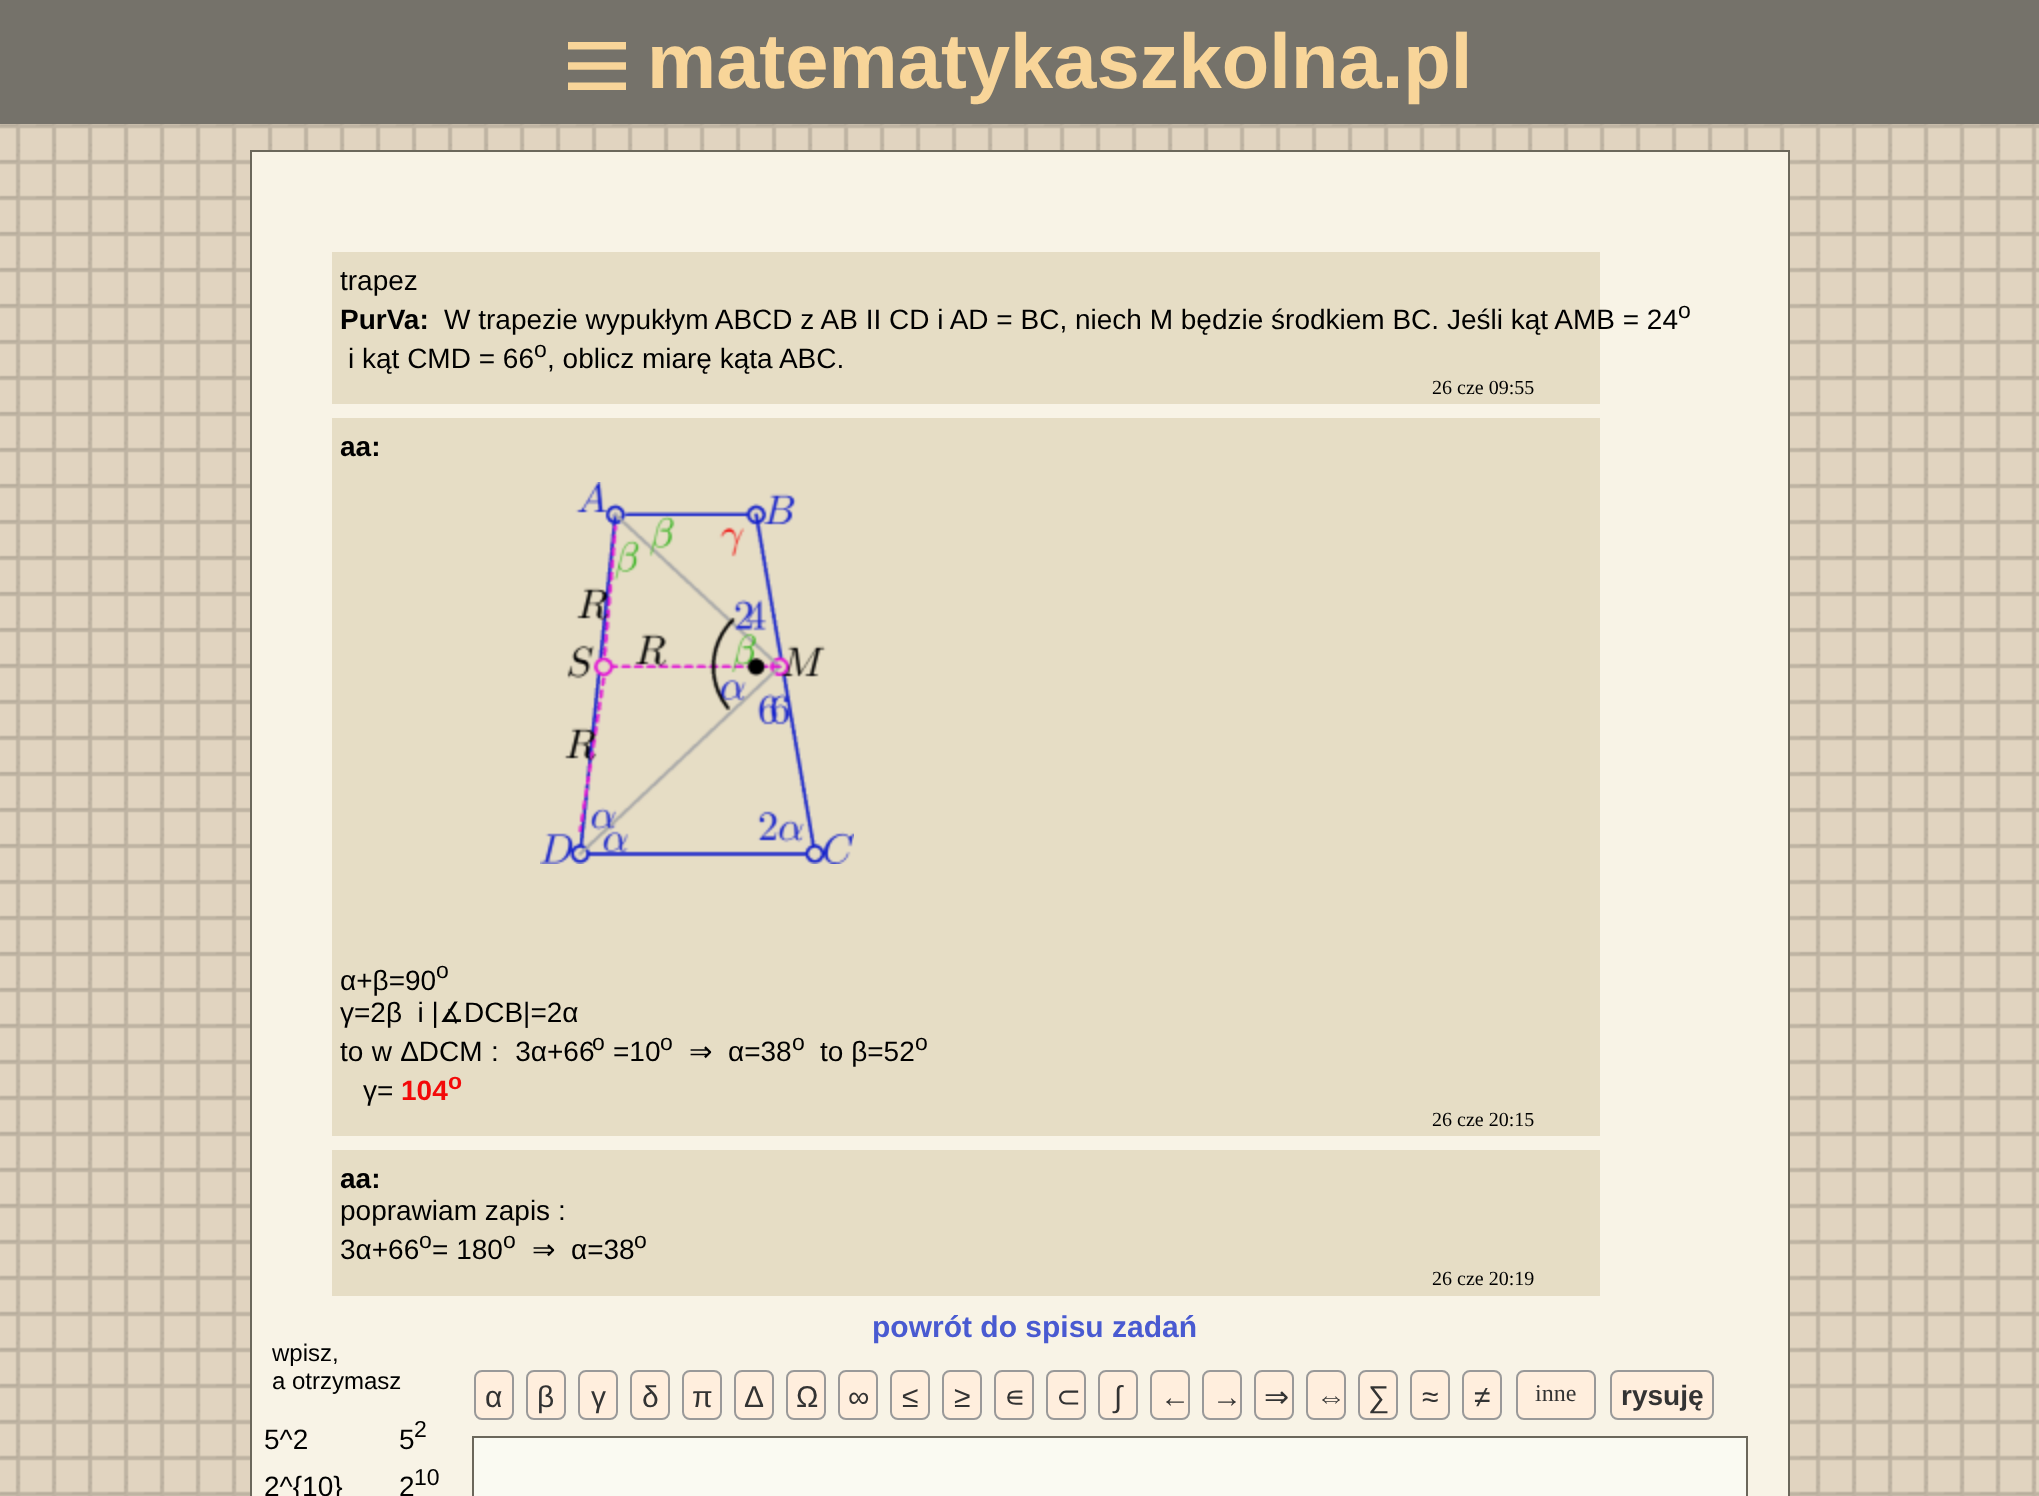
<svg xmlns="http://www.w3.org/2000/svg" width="2039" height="1496">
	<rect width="100%" height="100%" fill="#FFFFFF" />
	<image x="0" y="124" width="2039" height="1372" href="assets/img1.png" />
	<rect x="0" y="0" width="2039" height="124" fill="#75726A" />
	<image x="568" y="42" width="58" height="48" href="assets/img2.png" />
	<text x="647" y="88" font-family="Liberation Sans" font-size="77.75" font-weight="700" fill="#F8D599">matematykaszkolna.pl</text>
	<rect x="251" y="151" width="1538" height="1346" fill="#F8F3E6" stroke="#6B675B" stroke-width="2" />
	<rect x="332" y="252" width="1268" height="152" fill="#E6DDC5" />
	<text x="340" y="290" font-family="Liberation Sans" font-size="28" fill="#000000">trapez</text>
	<text x="340" y="329" font-family="Liberation Sans" font-size="28" font-weight="700" fill="#000000">PurVa:</text>
	<text x="444" y="329" font-family="Liberation Sans" font-size="28" fill="#000000">W trapezie wypukłym ABCD z AB II CD i AD = BC, niech M będzie środkiem BC. Jeśli kąt AMB = 24</text>
	<text x="1678" y="318" font-family="Liberation Sans" font-size="23" fill="#000000">o</text>
	<text x="348" y="368" font-family="Liberation Sans" font-size="28" fill="#000000">i kąt CMD = 66</text>
	<text x="534" y="357" font-family="Liberation Sans" font-size="23" fill="#000000">o</text>
	<text x="547" y="368" font-family="Liberation Sans" font-size="28" fill="#000000">, oblicz miarę kąta ABC.</text>
	<text x="1432" y="394" font-family="Liberation Serif" font-size="20" fill="#000000">26 cze 09:55</text>
	<rect x="332" y="418" width="1268" height="718" fill="#E6DDC5" />
	<text x="340" y="456" font-family="Liberation Sans" font-size="28" font-weight="700" fill="#000000">aa:</text>
	<image x="540" y="482" width="314" height="382" href="assets/img3.png" />
	<text x="340" y="990" font-family="Liberation Sans" font-size="28" fill="#000000">α+β=90</text>
	<text x="436" y="978" font-family="Liberation Sans" font-size="23" fill="#000000">o</text>
	<text x="340" y="1022" font-family="Liberation Sans" font-size="28" fill="#000000" xml:space="preserve">γ=2β  i |</text>
	<text x="439" y="1022" font-family="DejaVu Sans" font-size="28" fill="#000000">∡</text>
	<g font-family="Liberation Sans" font-size="28" fill="#000000">
		<text x="464" y="1022">DCB|=2α</text>
		<text x="340" y="1061" word-spacing="0.5" xml:space="preserve">to w ΔDCM :  3α+66</text>
	</g>
	<text x="592" y="1050" font-family="Liberation Sans" font-size="23" fill="#000000">o</text>
	<text x="613" y="1061" font-family="Liberation Sans" font-size="28" fill="#000000">=10</text>
	<text x="660" y="1050" font-family="Liberation Sans" font-size="23" fill="#000000">o</text>
	<text x="689" y="1061" font-family="DejaVu Sans" font-size="28" fill="#000000">⇒</text>
	<text x="728" y="1061" font-family="Liberation Sans" font-size="28" fill="#000000">α=38</text>
	<text x="792" y="1050" font-family="Liberation Sans" font-size="23" fill="#000000">o</text>
	<text x="820" y="1061" font-family="Liberation Sans" font-size="28" fill="#000000">to β=52</text>
	<text x="915" y="1050" font-family="Liberation Sans" font-size="23" fill="#000000">o</text>
	<text x="363" y="1100" font-family="Liberation Sans" font-size="28" fill="#000000">γ=</text>
	<text x="401" y="1100" font-family="Liberation Sans" font-size="28" font-weight="700" fill="#F30909">104</text>
	<text x="448" y="1089" font-family="Liberation Sans" font-size="23" font-weight="700" fill="#F30909">o</text>
	<text x="1432" y="1126" font-family="Liberation Serif" font-size="20" fill="#000000">26 cze 20:15</text>
	<rect x="332" y="1150" width="1268" height="146" fill="#E6DDC5" />
	<text x="340" y="1188" font-family="Liberation Sans" font-size="28" font-weight="700" fill="#000000">aa:</text>
	<g font-family="Liberation Sans" font-size="28" fill="#000000">
		<text x="340" y="1220">poprawiam zapis :</text>
		<text x="340" y="1259">3α+66</text>
	</g>
	<text x="419" y="1248" font-family="Liberation Sans" font-size="23" fill="#000000">o</text>
	<text x="432" y="1259" font-family="Liberation Sans" font-size="28" fill="#000000">= 180</text>
	<text x="503" y="1248" font-family="Liberation Sans" font-size="23" fill="#000000">o</text>
	<text x="532" y="1259" font-family="DejaVu Sans" font-size="28" fill="#000000">⇒</text>
	<text x="571" y="1259" font-family="Liberation Sans" font-size="28" fill="#000000">α=38</text>
	<text x="634" y="1248" font-family="Liberation Sans" font-size="23" fill="#000000">o</text>
	<text x="1432" y="1285" font-family="Liberation Serif" font-size="20" fill="#000000">26 cze 20:19</text>
	<text x="872" y="1337" font-family="Liberation Sans" font-size="30" font-weight="700" fill="#495AD1">powrót do spisu zadań</text>
	<g font-family="Liberation Sans" font-size="24" fill="#000000">
		<text x="272" y="1361">wpisz,</text>
		<text x="272" y="1389">a otrzymasz</text>
	</g>
	<rect x="475" y="1371" width="38" height="48" rx="7" fill="#FFEEDD" stroke="#999999" stroke-width="2" />
	<text x="485" y="1407" font-family="Liberation Sans" font-size="30" fill="#333333">α</text>
	<rect x="527" y="1371" width="38" height="48" rx="7" fill="#FFEEDD" stroke="#999999" stroke-width="2" />
	<text x="537" y="1407" font-family="Liberation Sans" font-size="30" fill="#333333">β</text>
	<rect x="579" y="1371" width="38" height="48" rx="7" fill="#FFEEDD" stroke="#999999" stroke-width="2" />
	<text x="591" y="1407" font-family="Liberation Sans" font-size="30" fill="#333333">γ</text>
	<rect x="631" y="1371" width="38" height="48" rx="7" fill="#FFEEDD" stroke="#999999" stroke-width="2" />
	<text x="642" y="1407" font-family="Liberation Sans" font-size="30" fill="#333333">δ</text>
	<rect x="683" y="1371" width="38" height="48" rx="7" fill="#FFEEDD" stroke="#999999" stroke-width="2" />
	<text x="692" y="1407" font-family="Liberation Sans" font-size="30" fill="#333333">π</text>
	<rect x="735" y="1371" width="38" height="48" rx="7" fill="#FFEEDD" stroke="#999999" stroke-width="2" />
	<text x="744" y="1407" font-family="Liberation Sans" font-size="30" fill="#333333">Δ</text>
	<rect x="787" y="1371" width="38" height="48" rx="7" fill="#FFEEDD" stroke="#999999" stroke-width="2" />
	<text x="796" y="1407" font-family="Liberation Sans" font-size="30" fill="#333333">Ω</text>
	<rect x="839" y="1371" width="38" height="48" rx="7" fill="#FFEEDD" stroke="#999999" stroke-width="2" />
	<text x="848" y="1407" font-family="Liberation Sans" font-size="30" fill="#333333">∞</text>
	<rect x="891" y="1371" width="38" height="48" rx="7" fill="#FFEEDD" stroke="#999999" stroke-width="2" />
	<text x="902" y="1407" font-family="Liberation Sans" font-size="30" fill="#333333">≤</text>
	<rect x="943" y="1371" width="38" height="48" rx="7" fill="#FFEEDD" stroke="#999999" stroke-width="2" />
	<text x="954" y="1407" font-family="Liberation Sans" font-size="30" fill="#333333">≥</text>
	<rect x="995" y="1371" width="38" height="48" rx="7" fill="#FFEEDD" stroke="#999999" stroke-width="2" />
	<text x="1004" y="1407" font-family="DejaVu Sans" font-size="30" fill="#333333">∊</text>
	<rect x="1047" y="1371" width="38" height="48" rx="7" fill="#FFEEDD" stroke="#999999" stroke-width="2" />
	<text x="1056" y="1407" font-family="DejaVu Sans" font-size="30" fill="#333333">⊂</text>
	<rect x="1099" y="1371" width="38" height="48" rx="7" fill="#FFEEDD" stroke="#999999" stroke-width="2" />
	<text x="1114" y="1407" font-family="Liberation Sans" font-size="30" fill="#333333">∫</text>
	<rect x="1151" y="1371" width="38" height="48" rx="7" fill="#FFEEDD" stroke="#999999" stroke-width="2" />
	<text x="1160" y="1407" font-family="Liberation Sans" font-size="30" fill="#333333">←</text>
	<rect x="1203" y="1371" width="38" height="48" rx="7" fill="#FFEEDD" stroke="#999999" stroke-width="2" />
	<text x="1212" y="1407" font-family="Liberation Sans" font-size="30" fill="#333333">→</text>
	<rect x="1255" y="1371" width="38" height="48" rx="7" fill="#FFEEDD" stroke="#999999" stroke-width="2" />
	<text x="1264" y="1407" font-family="DejaVu Sans" font-size="30" fill="#333333">⇒</text>
	<rect x="1307" y="1371" width="38" height="48" rx="7" fill="#FFEEDD" stroke="#999999" stroke-width="2" />
	<text x="1316" y="1407" font-family="Liberation Sans" font-size="30" fill="#333333">⇔</text>
	<rect x="1359" y="1371" width="38" height="48" rx="7" fill="#FFEEDD" stroke="#999999" stroke-width="2" />
	<text x="1368" y="1407" font-family="Liberation Sans" font-size="30" fill="#333333">∑</text>
	<rect x="1411" y="1371" width="38" height="48" rx="7" fill="#FFEEDD" stroke="#999999" stroke-width="2" />
	<text x="1422" y="1407" font-family="Liberation Sans" font-size="30" fill="#333333">≈</text>
	<rect x="1463" y="1371" width="38" height="48" rx="7" fill="#FFEEDD" stroke="#999999" stroke-width="2" />
	<text x="1474" y="1407" font-family="Liberation Sans" font-size="30" fill="#333333">≠</text>
	<rect x="1517" y="1371" width="78" height="48" rx="7" fill="#FFEEDD" stroke="#999999" stroke-width="2" />
	<text x="1535" y="1401" font-family="Liberation Serif" font-size="24" fill="#333333">inne</text>
	<rect x="1611" y="1371" width="102" height="48" rx="7" fill="#FFEEDD" stroke="#999999" stroke-width="2" />
	<text x="1621" y="1405" font-family="Liberation Sans" font-size="28" font-weight="700" fill="#333333">rysuję</text>
	<g font-family="Liberation Sans" font-size="28" fill="#000000">
		<text x="264" y="1449">5^2</text>
		<text x="399" y="1449">5</text>
	</g>
	<text x="414" y="1437" font-family="Liberation Sans" font-size="23" fill="#000000">2</text>
	<g font-family="Liberation Sans" font-size="28" fill="#000000">
		<text x="264" y="1496">2^{10}</text>
		<text x="399" y="1496">2</text>
	</g>
	<text x="414" y="1485" font-family="Liberation Sans" font-size="23" fill="#000000">10</text>
	<rect x="473" y="1437" width="1274" height="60" fill="#FAFAF2" stroke="#6B675B" stroke-width="2" />
</svg>
